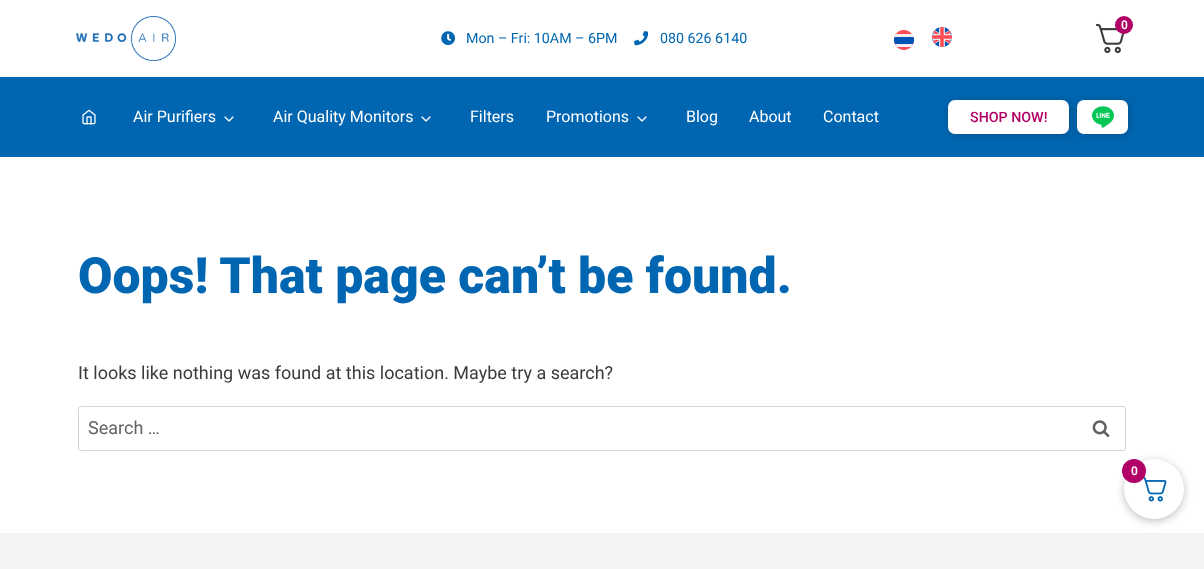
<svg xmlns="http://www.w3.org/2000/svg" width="1204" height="569">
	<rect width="100%" height="100%" fill="#FFFFFF" />
	<rect x="0" y="77" width="1204" height="80" fill="#0066B1" />
	<image x="76" y="16" width="100" height="45" href="assets/img1.png" />
	<image x="1096" y="23" width="29" height="31" href="assets/img2.png" />
	<circle cx="1124" cy="25" r="9" fill="#B10066" />
	<text x="1121" y="29" font-family="Roboto" font-size="12" font-weight="600" fill="#FFFFFF">0</text>
	<path d="M904 30C914.5 30 918 45 908 49C907 49.5 905 50 903.5 50C890 48.5 891.5 30 904 30Z" fill="#FF4B55" />
	<path d="M897 47H911C914.5 43.5 915 38 912 34H896C893 38 893.5 43.5 897 47Z" fill="#F0F0F0" />
	<path d="M895 44H913C914 42 914.5 39.5 913.5 37H894.5C893.5 39.5 894 42 895 44Z" fill="#0052B4" />
	<image x="932" y="27" width="20" height="20" href="assets/img3.png" />
	<image x="441" y="31" width="14" height="15" href="assets/img4.png" />
	<text x="466" y="43" font-family="Roboto" font-size="14.25" fill="#0066B1">Mon – Fri: 10AM – 6PM</text>
	<image x="634" y="31" width="14" height="15" href="assets/img5.png" />
	<text x="660" y="43" font-family="Roboto" font-size="14.25" fill="#0066B1">080 626 6140</text>
	<image x="82" y="109" width="14" height="16" href="assets/img6.png" />
	<text x="133" y="122" font-family="Roboto" font-size="16" fill="#FFFFFF">Air Purifiers</text>
	<image x="224" y="116" width="10" height="6" href="assets/img7.png" />
	<text x="273" y="122" font-family="Roboto" font-size="16" fill="#FFFFFF">Air Quality Monitors</text>
	<image x="421" y="116" width="10" height="6" href="assets/img7.png" />
	<g font-family="Roboto" font-size="16" fill="#FFFFFF">
		<text x="470" y="122">Filters</text>
		<text x="546" y="122">Promotions</text>
	</g>
	<image x="637" y="116" width="10" height="6" href="assets/img7.png" />
	<g font-family="Roboto" font-size="16" fill="#FFFFFF">
		<text x="686" y="122">Blog</text>
		<text x="749" y="122">About</text>
		<text x="823" y="122">Contact</text>
	</g>
	<rect x="949" y="101" width="121" height="34" rx="7" fill="#000000" fill-opacity="0.2" filter="blur(5px)" />
	<rect x="948" y="100" width="121" height="34" rx="7" fill="#FFFFFF" />
	<text x="970" y="122" font-family="Roboto" font-size="14.25" font-weight="500" fill="#B10066">SHOP NOW!</text>
	<rect x="1078" y="101" width="51" height="34" rx="7" fill="#000000" fill-opacity="0.2" filter="blur(5px)" />
	<rect x="1077" y="100" width="51" height="34" rx="7" fill="#FFFFFF" />
	<image x="1092" y="106" width="22" height="22" href="assets/img8.png" />
	<text x="78" y="293" font-family="Roboto" font-size="50" font-weight="900" fill="#0066B1">Oops! That page can’t be found.</text>
	<text x="78" y="379" font-family="Roboto" font-size="18" fill="#3B3B3B">It looks like nothing was found at this location. Maybe try a search?</text>
	<rect x="78.5" y="406.5" width="1047" height="44" rx="2.5" fill="none" stroke="#CBD5E0" />
	<text x="88" y="434" font-family="Roboto" font-size="18" fill="#626262">Search …</text>
	<image x="1092" y="420" width="18" height="17" href="assets/img9.png" />
	<rect x="0" y="533" width="1204" height="36" fill="#F3F3F3" />
	<rect x="1124" y="461" width="60" height="60" rx="30" fill="#000000" fill-opacity="0.25" filter="blur(4px)" />
	<circle cx="1154" cy="489" r="30" fill="#FFFFFF" />
	<image x="1142" y="476" width="25" height="26" href="assets/img10.png" />
	<circle cx="1134" cy="471" r="12" fill="#B10066" />
	<text x="1131" y="475" font-family="Roboto" font-size="12" font-weight="600" fill="#FFFFFF">0</text>
</svg>
